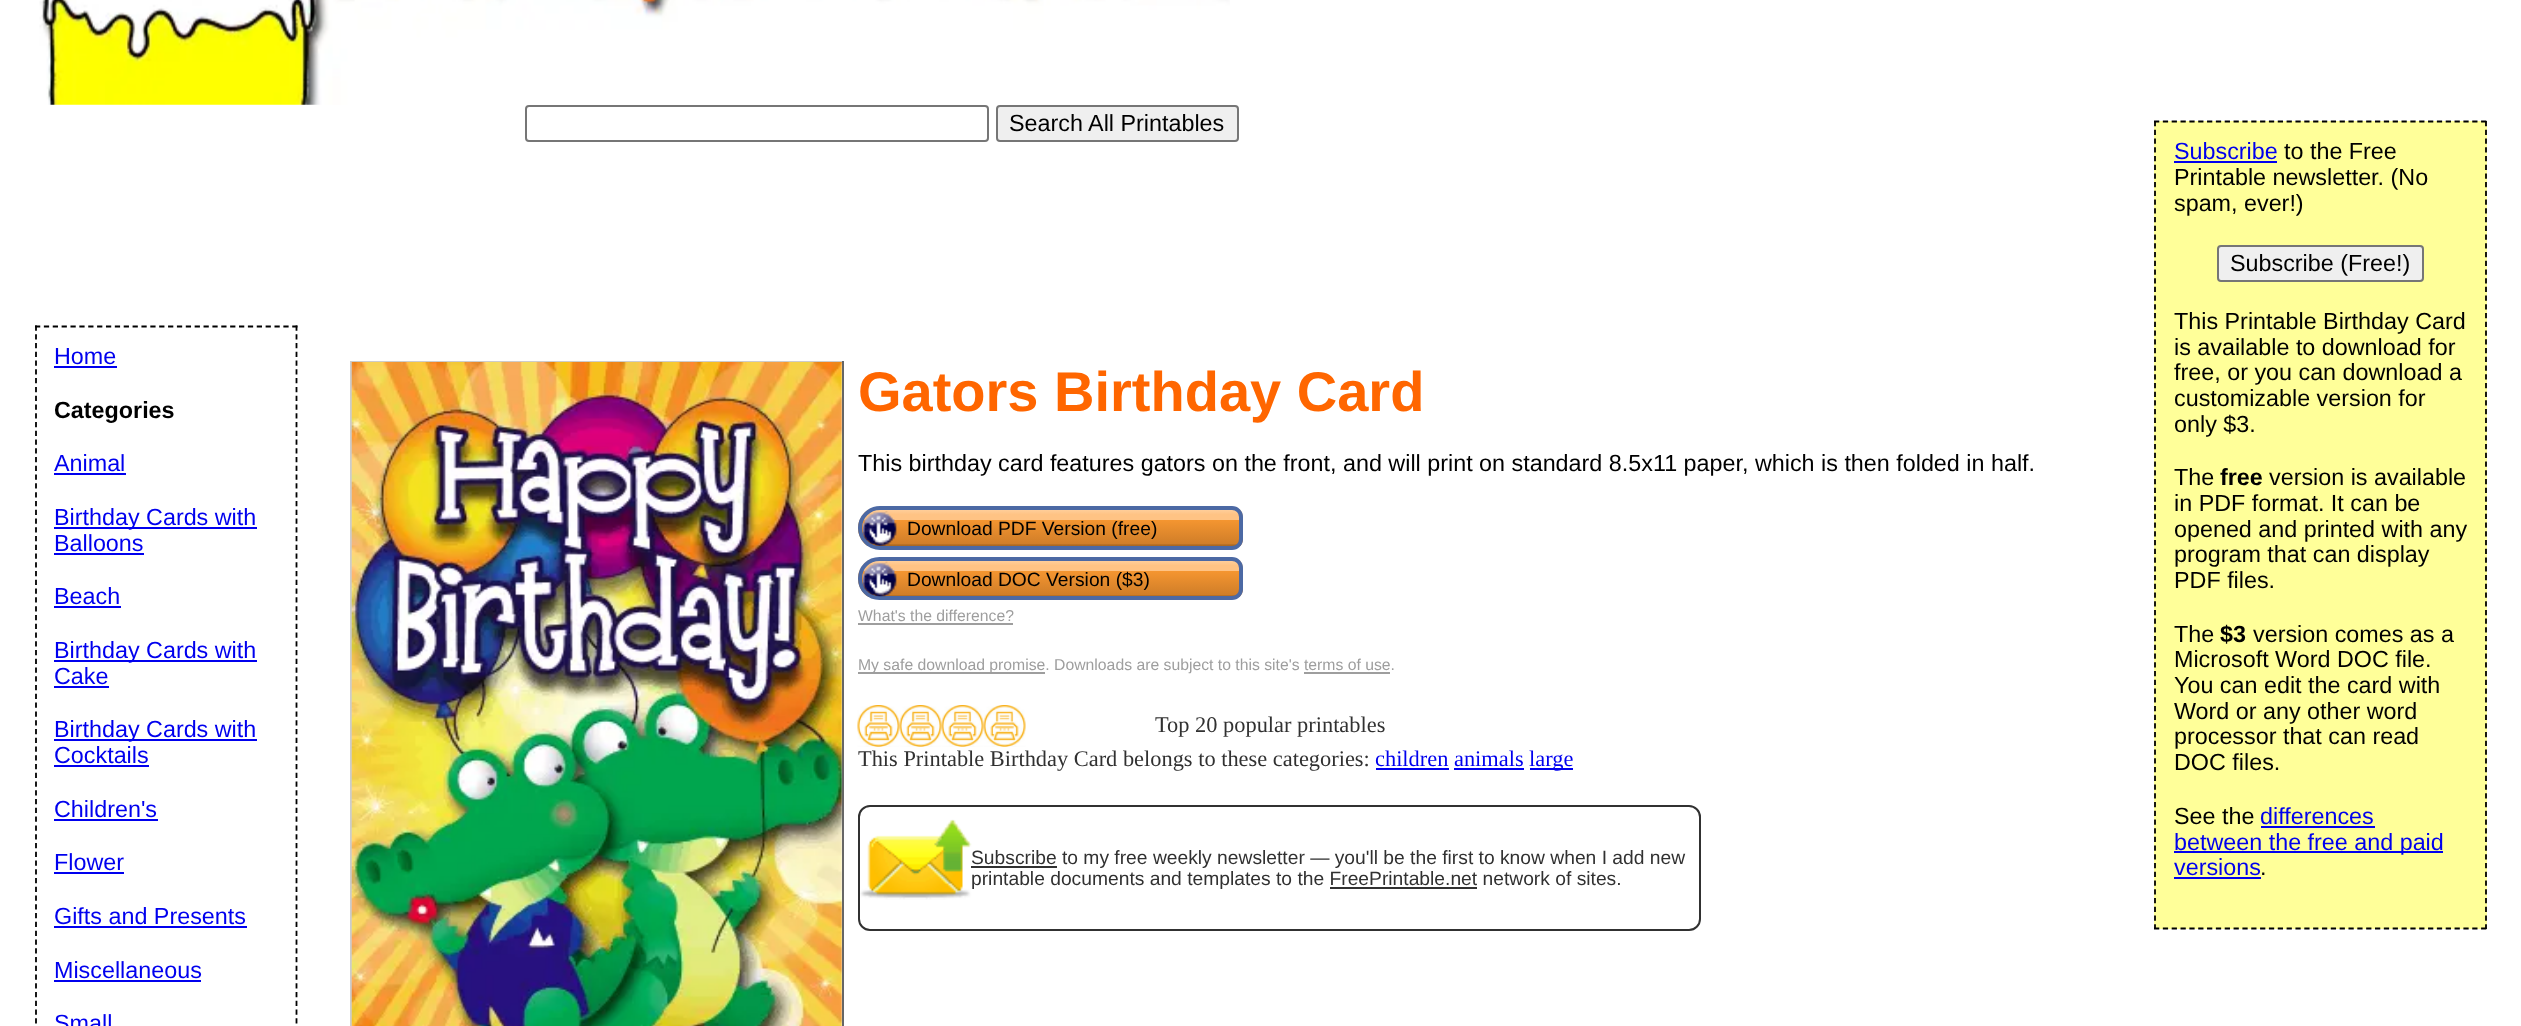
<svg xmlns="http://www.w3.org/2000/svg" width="2521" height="1026">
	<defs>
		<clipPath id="clip1"><path d="M880 506H1232C1238 506 1243 511 1243 517V539C1243 545 1238 550 1232 550H880C868 550 858 540 858 528C858 516 868 506 880 506Z" /></clipPath>
		<linearGradient id="g1" gradientUnits="userSpaceOnUse" x1="1050" y1="509" x2="1050" y2="546"><stop offset="0" stop-color="#FFD09E" /><stop offset="0.15" stop-color="#FFC384" /><stop offset="0.3" stop-color="#FFC384" /><stop offset="0.31" stop-color="#F49530" /><stop offset="0.94" stop-color="#D07E29" /><stop offset="0.95" stop-color="#BF7425" /><stop offset="1" stop-color="#A46420" /></linearGradient>
		<clipPath id="clip2"><path d="M879.5 557H1232C1238 557 1243 562 1243 568V589C1243 595 1238 600 1232 600H879.5C867.5 600 858 590.5 858 578.5C858 566.5 867.5 557 879.5 557Z" /></clipPath>
		<linearGradient id="g2" gradientUnits="userSpaceOnUse" x1="1050" y1="560" x2="1050" y2="597"><stop offset="0" stop-color="#FFD09E" /><stop offset="0.15" stop-color="#FFC384" /><stop offset="0.3" stop-color="#FFC384" /><stop offset="0.31" stop-color="#F49530" /><stop offset="0.94" stop-color="#D07E29" /><stop offset="0.95" stop-color="#BF7425" /><stop offset="1" stop-color="#A46420" /></linearGradient>
	</defs>
	<rect width="100%" height="100%" fill="#FFFFFF" />
	<image x="39" y="0" width="1191" height="105" href="assets/img1.png" />
	<rect x="526" y="106" width="462" height="35" rx="3" fill="none" stroke="#767676" stroke-width="2" />
	<rect x="997" y="106" width="241" height="35" rx="3" fill="#EFEFEF" stroke="#767676" stroke-width="2" />
	<text x="1009" y="131" font-family="Liberation Sans" font-size="23.33" fill="#000000">Search All Printables</text>
	<path d="M35 326.5H297.5" fill="none" stroke="#000000" stroke-width="1.8" stroke-dasharray="5.25 3.62" />
	<path d="M296.5 325.5V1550.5" fill="none" stroke="#000000" stroke-width="1.8" stroke-dasharray="5.25 3.52" />
	<path d="M36 325.5V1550.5" fill="none" stroke="#000000" stroke-width="1.8" stroke-dasharray="5.25 3.52" />
	<text x="54" y="364" font-family="Liberation Sans" font-size="23.33" fill="#0000EE">Home</text>
	<rect x="54" y="366" width="63" height="2" fill="#0000EE" />
	<text x="54" y="418" font-family="Liberation Sans" font-size="23.33" font-weight="700" fill="#000000">Categories</text>
	<text x="54" y="471" font-family="Liberation Sans" font-size="23.33" fill="#0000EE">Animal</text>
	<rect x="54" y="473" width="72" height="2" fill="#0000EE" />
	<rect x="54" y="527" width="203" height="2" fill="#0000EE" />
	<g font-family="Liberation Sans" font-size="23.33" fill="#0000EE">
		<text x="54" y="525">Birthday Cards with</text>
		<text x="54" y="551">Balloons</text>
	</g>
	<rect x="54" y="553" width="90" height="2" fill="#0000EE" />
	<text x="54" y="604" font-family="Liberation Sans" font-size="23.33" fill="#0000EE">Beach</text>
	<rect x="54" y="606" width="67" height="2" fill="#0000EE" />
	<rect x="54" y="660" width="203" height="2" fill="#0000EE" />
	<g font-family="Liberation Sans" font-size="23.33" fill="#0000EE">
		<text x="54" y="658">Birthday Cards with</text>
		<text x="54" y="684">Cake</text>
	</g>
	<rect x="54" y="686" width="55" height="2" fill="#0000EE" />
	<rect x="54" y="739" width="203" height="2" fill="#0000EE" />
	<g font-family="Liberation Sans" font-size="23.33" fill="#0000EE">
		<text x="54" y="737">Birthday Cards with</text>
		<text x="54" y="763">Cocktails</text>
	</g>
	<rect x="54" y="765" width="95" height="2" fill="#0000EE" />
	<text x="54" y="817" font-family="Liberation Sans" font-size="23.33" fill="#0000EE">Children's</text>
	<rect x="54" y="819" width="104" height="2" fill="#0000EE" />
	<text x="54" y="870" font-family="Liberation Sans" font-size="23.33" fill="#0000EE">Flower</text>
	<rect x="54" y="872" width="70" height="2" fill="#0000EE" />
	<text x="54" y="924" font-family="Liberation Sans" font-size="23.33" fill="#0000EE">Gifts and Presents</text>
	<rect x="54" y="926" width="193" height="2" fill="#0000EE" />
	<text x="54" y="978" font-family="Liberation Sans" font-size="23.33" fill="#0000EE">Miscellaneous</text>
	<rect x="54" y="980" width="147" height="2" fill="#0000EE" />
	<text x="54" y="1031" font-family="Liberation Sans" font-size="23.33" fill="#0000EE">Small</text>
	<rect x="350" y="361" width="494" height="2" fill="#CCCCCC" />
	<rect x="842" y="361" width="2" height="665" fill="#666666" />
	<rect x="350" y="361" width="2" height="665" fill="#CCCCCC" />
	<image x="351" y="362" width="491" height="664" href="assets/img2.png" />
	<text x="858" y="411" font-family="Liberation Sans" font-size="56" font-weight="700" fill="#FF6600">Gators Birthday Card</text>
	<text x="858" y="471" font-family="Liberation Sans" font-size="23.33" fill="#000000">This birthday card features gators on the front, and will print on standard 8.5x11 paper, which is then folded in half.</text>
	<g clip-path="url(#clip1)">
		<rect x="858" y="509" width="385" height="37" fill="url(#g1)" />
	</g>
	<path d="M880 508H1232C1237 508 1241 512 1241 517V539C1241 544 1237 548 1232 548H880C869 548 860 539 860 528C860 517 869 508 880 508Z" fill="none" stroke="#4C69A4" stroke-width="4" />
	<image x="862" y="511" width="35" height="35" href="assets/img3.png" />
	<text x="907" y="535" font-family="Liberation Sans" font-size="19.25" fill="#000000">Download PDF Version (free)</text>
	<g clip-path="url(#clip2)">
		<rect x="858" y="560" width="385" height="37" fill="url(#g2)" />
	</g>
	<path d="M879.5 559H1232C1237 559 1241 563 1241 568V589C1241 594 1237 598 1232 598H879.5C868.5 598 860 589.5 860 578.5C860 567.5 868.5 559 879.5 559Z" fill="none" stroke="#4C69A4" stroke-width="4" />
	<image x="862" y="561" width="35" height="36" href="assets/img4.png" />
	<text x="907" y="586" font-family="Liberation Sans" font-size="19.25" fill="#000000">Download DOC Version ($3)</text>
	<text x="858" y="621" font-family="Liberation Sans" font-size="15.75" fill="#9E9E9E">What's the difference?</text>
	<rect x="858" y="623" width="155" height="2" fill="#9E9E9E" />
	<rect x="858" y="672" width="187" height="2" fill="#9E9E9E" />
	<text x="858" y="670" font-family="Liberation Sans" font-size="15.75" fill="#9E9E9E">My safe download promise. Downloads are subject to this site's terms of use.</text>
	<rect x="1304" y="672" width="86" height="2" fill="#9E9E9E" />
	<image x="857" y="705" width="43" height="42" href="assets/img5.png" />
	<image x="899" y="705" width="43" height="42" href="assets/img6.png" />
	<image x="941" y="705" width="43" height="42" href="assets/img7.png" />
	<image x="983" y="705" width="43" height="42" href="assets/img8.png" />
	<g font-family="Liberation Serif" font-size="22.4" fill="#313131">
		<text x="1155" y="732">Top 20 popular printables</text>
		<text x="858" y="766">This Printable Birthday Card belongs to these categories:</text>
	</g>
	<text x="1375" y="766" font-family="Liberation Serif" font-size="22.4" fill="#0000EE">children animals</text>
	<rect x="1376" y="768" width="73" height="2" fill="#0000EE" />
	<rect x="1530" y="768" width="43" height="2" fill="#0000EE" />
	<text x="1529" y="766" font-family="Liberation Serif" font-size="22.4" fill="#0000EE">large</text>
	<rect x="1454" y="768" width="70" height="2" fill="#0000EE" />
	<rect x="859" y="806" width="841" height="124" rx="11" fill="none" stroke="#313131" stroke-width="2" />
	<image x="860" y="819" width="112" height="81" href="assets/img9.png" />
	<rect x="971" y="866" width="86" height="2" fill="#313131" />
	<g font-family="Liberation Sans" font-size="19.25" fill="#313131">
		<text x="971" y="864">Subscribe to my free weekly newsletter — you'll be the first to know when I add new</text>
		<text x="971" y="885">printable documents and templates to the FreePrintable.net network of sites.</text>
	</g>
	<rect x="1330" y="887" width="147" height="2" fill="#313131" />
	<rect x="2154" y="121" width="333" height="808" fill="#FFFF99" />
	<path d="M2154 121.5H2487" fill="none" stroke="#000000" stroke-width="1.8" stroke-dasharray="5.25 3.59" />
	<path d="M2486 121V929" fill="none" stroke="#000000" stroke-width="1.8" stroke-dasharray="5.25 3.48" />
	<path d="M2154 928.5H2487" fill="none" stroke="#000000" stroke-width="1.8" stroke-dasharray="5.25 3.59" />
	<path d="M2155 121V929" fill="none" stroke="#000000" stroke-width="1.8" stroke-dasharray="5.25 3.48" />
	<text x="2174" y="159" font-family="Liberation Sans" font-size="23.33" fill="#0000EE">Subscribe</text>
	<rect x="2174" y="161" width="103" height="2" fill="#0000EE" />
	<g font-family="Liberation Sans" font-size="23.33" fill="#000000">
		<text x="2284" y="159">to the Free</text>
		<text x="2174" y="185">Printable newsletter. (No</text>
		<text x="2174" y="211">spam, ever!)</text>
	</g>
	<rect x="2218" y="246" width="205" height="35" rx="3" fill="#EFEFEF" stroke="#767676" stroke-width="2" />
	<g font-family="Liberation Sans" font-size="23.33" fill="#000000">
		<text x="2230" y="271">Subscribe (Free!)</text>
		<text x="2174" y="329">This Printable Birthday Card</text>
		<text x="2174" y="355">is available to download for</text>
		<text x="2174" y="380">free, or you can download a</text>
		<text x="2174" y="406">customizable version for</text>
		<text x="2174" y="432">only $3.</text>
		<text x="2174" y="485">The</text>
	</g>
	<text x="2220" y="485" font-family="Liberation Sans" font-size="23.33" font-weight="700" fill="#000000">free</text>
	<g font-family="Liberation Sans" font-size="23.33" fill="#000000">
		<text x="2269" y="485">version is available</text>
		<text x="2174" y="511">in PDF format. It can be</text>
		<text x="2174" y="537">opened and printed with any</text>
		<text x="2174" y="562">program that can display</text>
		<text x="2174" y="588">PDF files.</text>
		<text x="2174" y="642">The</text>
	</g>
	<text x="2220" y="642" font-family="Liberation Sans" font-size="23.33" font-weight="700" fill="#000000">$3</text>
	<g font-family="Liberation Sans" font-size="23.33" fill="#000000">
		<text x="2253" y="642">version comes as a</text>
		<text x="2174" y="667">Microsoft Word DOC file.</text>
		<text x="2174" y="693">You can edit the card with</text>
		<text x="2174" y="719">Word or any other word</text>
		<text x="2174" y="744">processor that can read</text>
		<text x="2174" y="770">DOC files.</text>
		<text x="2174" y="824">See the</text>
	</g>
	<text x="2260" y="824" font-family="Liberation Sans" font-size="23.33" fill="#0000EE">differences</text>
	<rect x="2261" y="826" width="114" height="2" fill="#0000EE" />
	<rect x="2174" y="851" width="269" height="2" fill="#0000EE" />
	<g font-family="Liberation Sans" font-size="23.33" fill="#0000EE">
		<text x="2174" y="850">between the free and paid</text>
		<text x="2174" y="875">versions</text>
	</g>
	<rect x="2174" y="877" width="87" height="2" fill="#0000EE" />
	<text x="2260" y="875" font-family="Liberation Sans" font-size="23.33" fill="#000000">.</text>
</svg>
